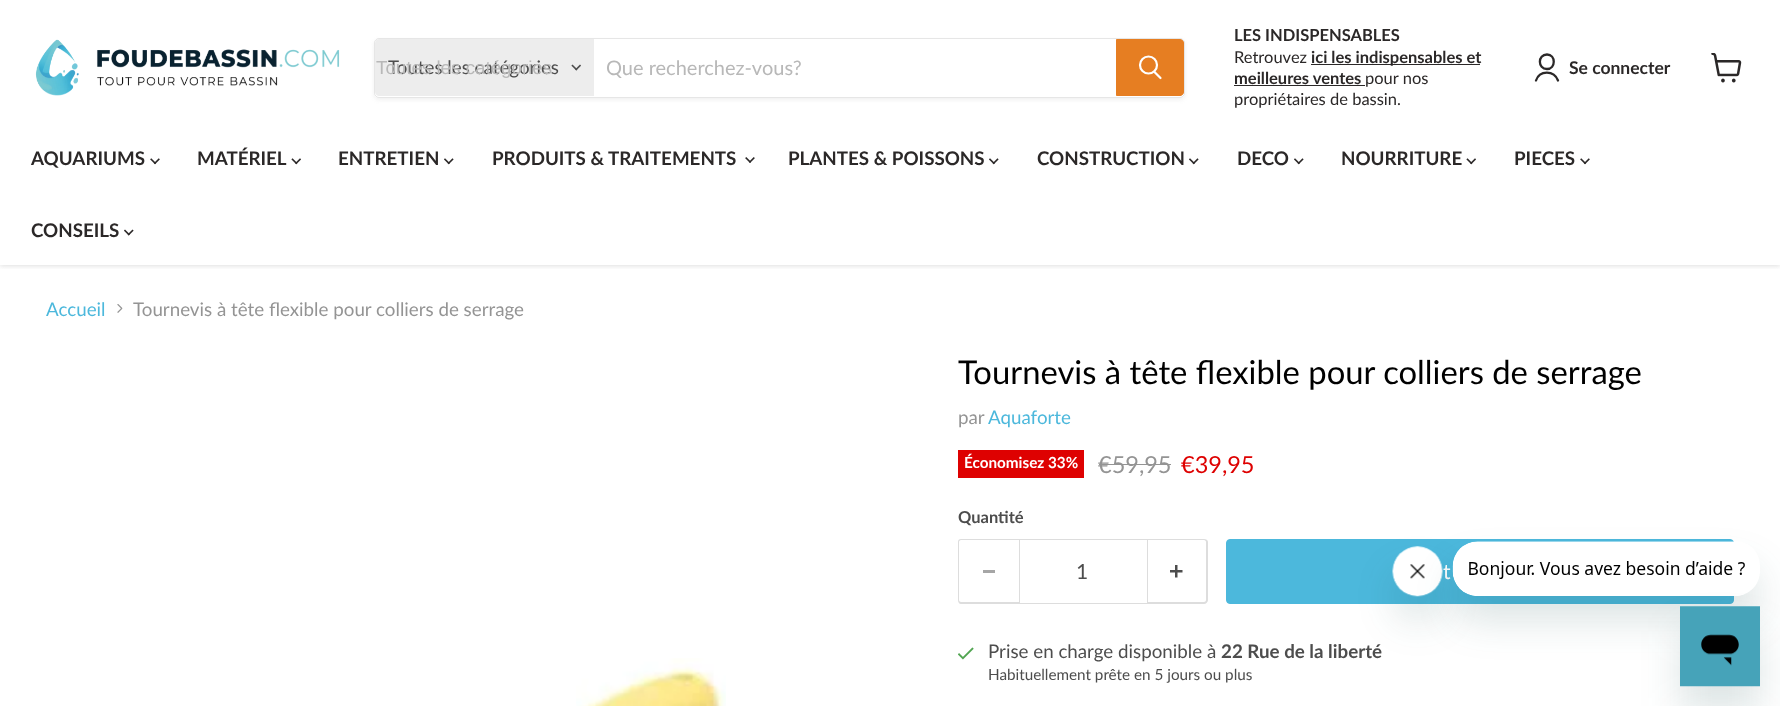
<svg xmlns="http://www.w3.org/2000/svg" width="1780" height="706">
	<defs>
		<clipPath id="clip1"><rect x="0" y="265" width="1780" height="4" /></clipPath>
		<clipPath id="clip2"><path d="M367 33H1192V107H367ZM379 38H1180C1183 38 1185 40 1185 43V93C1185 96 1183 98 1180 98H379C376 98 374 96 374 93V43C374 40 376 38 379 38Z" clip-rule="evenodd" /></clipPath>
		<clipPath id="clip3"><path d="M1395 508H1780V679H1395ZM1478 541H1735C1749 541 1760 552 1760 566V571C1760 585 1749 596 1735 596H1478C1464 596 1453 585 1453 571V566C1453 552 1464 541 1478 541Z" clip-rule="evenodd" /></clipPath>
	</defs>
	<rect width="100%" height="100%" fill="#FFFFFF" />
	<g clip-path="url(#clip1)">
		<rect x="0" y="1" width="1780" height="265" fill="#808080" fill-opacity="0.25" filter="blur(2.5px)" />
	</g>
	<image x="35" y="39" width="305" height="57" href="assets/img1.png" />
	<g clip-path="url(#clip2)">
		<rect x="374" y="40" width="811" height="60" rx="5" fill="#808080" fill-opacity="0.11" filter="blur(2px)" />
	</g>
	<rect x="374.5" y="38.5" width="810" height="59" rx="4.5" fill="none" stroke="#808080" stroke-opacity="0.2" />
	<path d="M379 39H594V96H379C377 96 375 94 375 92V43C375 41 377 39 379 39Z" fill="#EDEDED" />
	<text x="388" y="74" font-family="Lato" font-size="18.75" fill="#4D4D4D">Toutes les catégories</text>
	<text x="376" y="74" font-family="Liberation Sans" font-size="18.75" fill="#B8B8B8">Toutes les catégories</text>
	<image x="571" y="64" width="10" height="7" href="assets/img2.png" />
	<text x="606" y="75" font-family="Lato" font-size="20" fill="#B8B8B8">Que recherchez-vous?</text>
	<path d="M1116.5 39.5H1180C1182 39.5 1183.5 41 1183.5 43V92C1183.5 94 1182 95.5 1180 95.5H1116.5Z" fill="#E67E22" stroke="#E67E22" />
	<path d="M1160.5 78L1154.5 72" fill="none" stroke="#FFFFFF" stroke-width="2.2" stroke-linecap="round" />
	<circle cx="1148.5" cy="65" r="8.5" fill="none" stroke="#FFFFFF" stroke-width="2.2" />
	<text x="1234" y="41" font-family="Lato" font-size="16.5" font-weight="700" fill="#2B2828">LES INDISPENSABLES</text>
	<text x="1234" y="63" font-family="Lato" font-size="16.5" fill="#2B2828">Retrouvez</text>
	<rect x="1311" y="64" width="169" height="1" fill="#2B2828" />
	<g font-family="Lato" font-size="16.5" font-weight="700" fill="#2B2828">
		<text x="1311" y="63">ici les indispensables et</text>
		<text x="1234" y="84">meilleures ventes</text>
	</g>
	<rect x="1234" y="85" width="131" height="1" fill="#2B2828" />
	<g font-family="Lato" font-size="16.5" fill="#2B2828">
		<text x="1365" y="84">pour nos</text>
		<text x="1234" y="105">propriétaires de bassin.</text>
	</g>
	<path d="M1547 69C1556 69 1556 54.5 1547 54.5C1537.5 54.5 1537.5 69 1547 69ZM1558 80.5C1554 70 1539.5 70 1536 80.5" fill="none" stroke="#2B2828" stroke-width="2.3" stroke-linecap="round" stroke-linejoin="round" />
	<text x="1569" y="74" font-family="Lato" font-size="17.5" font-weight="700" fill="#2B2828">Se connecter</text>
	<image x="1711" y="53" width="31" height="30" href="assets/img3.png" />
	<text x="31" y="165" font-family="Lato" font-size="18.75" font-weight="700" fill="#2B2828">AQUARIUMS</text>
	<image x="150" y="158" width="10" height="7" href="assets/img4.png" />
	<text x="197" y="165" font-family="Lato" font-size="18.75" font-weight="700" fill="#2B2828">MATÉRIEL</text>
	<image x="291" y="158" width="10" height="7" href="assets/img5.png" />
	<text x="338" y="165" font-family="Lato" font-size="18.75" font-weight="700" fill="#2B2828">ENTRETIEN</text>
	<image x="444" y="158" width="10" height="7" href="assets/img6.png" />
	<text x="492" y="165" font-family="Lato" font-size="18.75" font-weight="700" fill="#2B2828">PRODUITS &amp; TRAITEMENTS</text>
	<image x="745" y="157" width="10" height="6" href="assets/img7.png" />
	<text x="788" y="165" font-family="Lato" font-size="18.75" font-weight="700" fill="#2B2828">PLANTES &amp; POISSONS</text>
	<image x="989" y="158" width="10" height="7" href="assets/img6.png" />
	<text x="1037" y="165" font-family="Lato" font-size="18.75" font-weight="700" fill="#2B2828">CONSTRUCTION</text>
	<image x="1189" y="158" width="10" height="7" href="assets/img6.png" />
	<text x="1237" y="165" font-family="Lato" font-size="18.75" font-weight="700" fill="#2B2828">DECO</text>
	<image x="1294" y="158" width="10" height="7" href="assets/img6.png" />
	<text x="1341" y="165" font-family="Lato" font-size="18.75" font-weight="700" fill="#2B2828">NOURRITURE</text>
	<image x="1466" y="158" width="10" height="7" href="assets/img5.png" />
	<text x="1514" y="165" font-family="Lato" font-size="18.75" font-weight="700" fill="#2B2828">PIECES</text>
	<image x="1580" y="158" width="10" height="7" href="assets/img4.png" />
	<text x="31" y="237" font-family="Lato" font-size="18.75" font-weight="700" fill="#2B2828">CONSEILS</text>
	<image x="124" y="229" width="10" height="7" href="assets/img8.png" />
	<text x="46" y="316" font-family="Lato" font-size="18.75" fill="#4CB8DC">Accueil</text>
	<image x="117" y="304" width="6" height="9" href="assets/img9.png" />
	<text x="133" y="316" font-family="Lato" font-size="18.75" fill="#949494">Tournevis à tête flexible pour colliers de serrage</text>
	<image x="576" y="658" width="150" height="48" href="assets/img10.png" />
	<text x="958" y="384" font-family="Lato" font-size="32.8" fill="#000000">Tournevis à tête flexible pour colliers de serrage</text>
	<text x="958" y="424" font-family="Lato" font-size="18.75" fill="#949494">par</text>
	<text x="988" y="424" font-family="Lato" font-size="18.75" fill="#4CB8DC">Aquaforte</text>
	<rect x="958" y="450" width="126" height="28" fill="#DE0101" />
	<text x="964" y="468" font-family="Lato" font-size="15.25" font-weight="700" fill="#FFFFFF">Économisez 33%</text>
	<text x="1098" y="473" font-family="Lato" font-size="23.5" fill="#949494">€59,95</text>
	<rect x="1099" y="464" width="72" height="1" fill="#949494" />
	<text x="1181" y="473" font-family="Lato" font-size="23.5" fill="#DE0101">€39,95</text>
	<text x="958" y="523" font-family="Lato" font-size="16.5" font-weight="700" fill="#4D4D4D">Quantité</text>
	<path d="M961 539H1019V604H961C959 604 958 602 958 600V542C958 540 959 539 961 539ZM961 540H1019V602H961C960 602 959 601 959 600V542C959 541 960 540 961 540Z" fill="#DDDDDD" fill-rule="evenodd" />
	<rect x="983" y="570" width="12" height="3" fill="#A6A6A6" />
	<rect x="1019.5" y="539.5" width="128" height="64" fill="none" stroke="#DDDDDD" />
	<text x="1076" y="579" font-family="Lato" font-size="21" fill="#4D4D4D">1</text>
	<path d="M1148 539H1204C1206 539 1208 540 1208 542V600C1208 602 1206 604 1204 604H1148ZM1148 540H1204C1205 540 1206 541 1206 542V600C1206 601 1205 602 1204 602H1148Z" fill="#DDDDDD" fill-rule="evenodd" />
	<image x="1170" y="565" width="13" height="13" href="assets/img11.png" />
	<rect x="1226.5" y="539.5" width="507" height="64" rx="3.5" fill="#4CB8DC" stroke="#4CB8DC" />
	<text x="1443" y="579" font-family="Lato" font-size="21" fill="#FFFFFF">t</text>
	<image x="958" y="647" width="16" height="13" href="assets/img12.png" />
	<text x="988" y="658" font-family="Lato" font-size="18.75" fill="#4D4D4D">Prise en charge disponible à</text>
	<text x="1221" y="658" font-family="Lato" font-size="18.75" font-weight="700" fill="#4D4D4D">22 Rue de la liberté</text>
	<text x="988" y="680" font-family="Lato" font-size="15.25" fill="#4D4D4D">Habituellement prête en 5 jours ou plus</text>
	<rect x="1393" y="571" width="50" height="50" rx="25" fill="#17494D" fill-opacity="0.15" filter="blur(19px)" />
	<image x="1392" y="546" width="51" height="51" href="assets/img14.png" />
	<g clip-path="url(#clip3)">
		<rect x="1453" y="566" width="307" height="55" rx="25" fill="#17494D" fill-opacity="0.15" filter="blur(19px)" />
	</g>
	<image x="1452" y="541" width="293" height="55" href="assets/img13.png" />
	<rect x="1680" y="631" width="80" height="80" fill="#17494D" fill-opacity="0.15" filter="blur(19px)" />
	<image x="1680" y="606" width="80" height="81" href="assets/img15.png" />
</svg>
